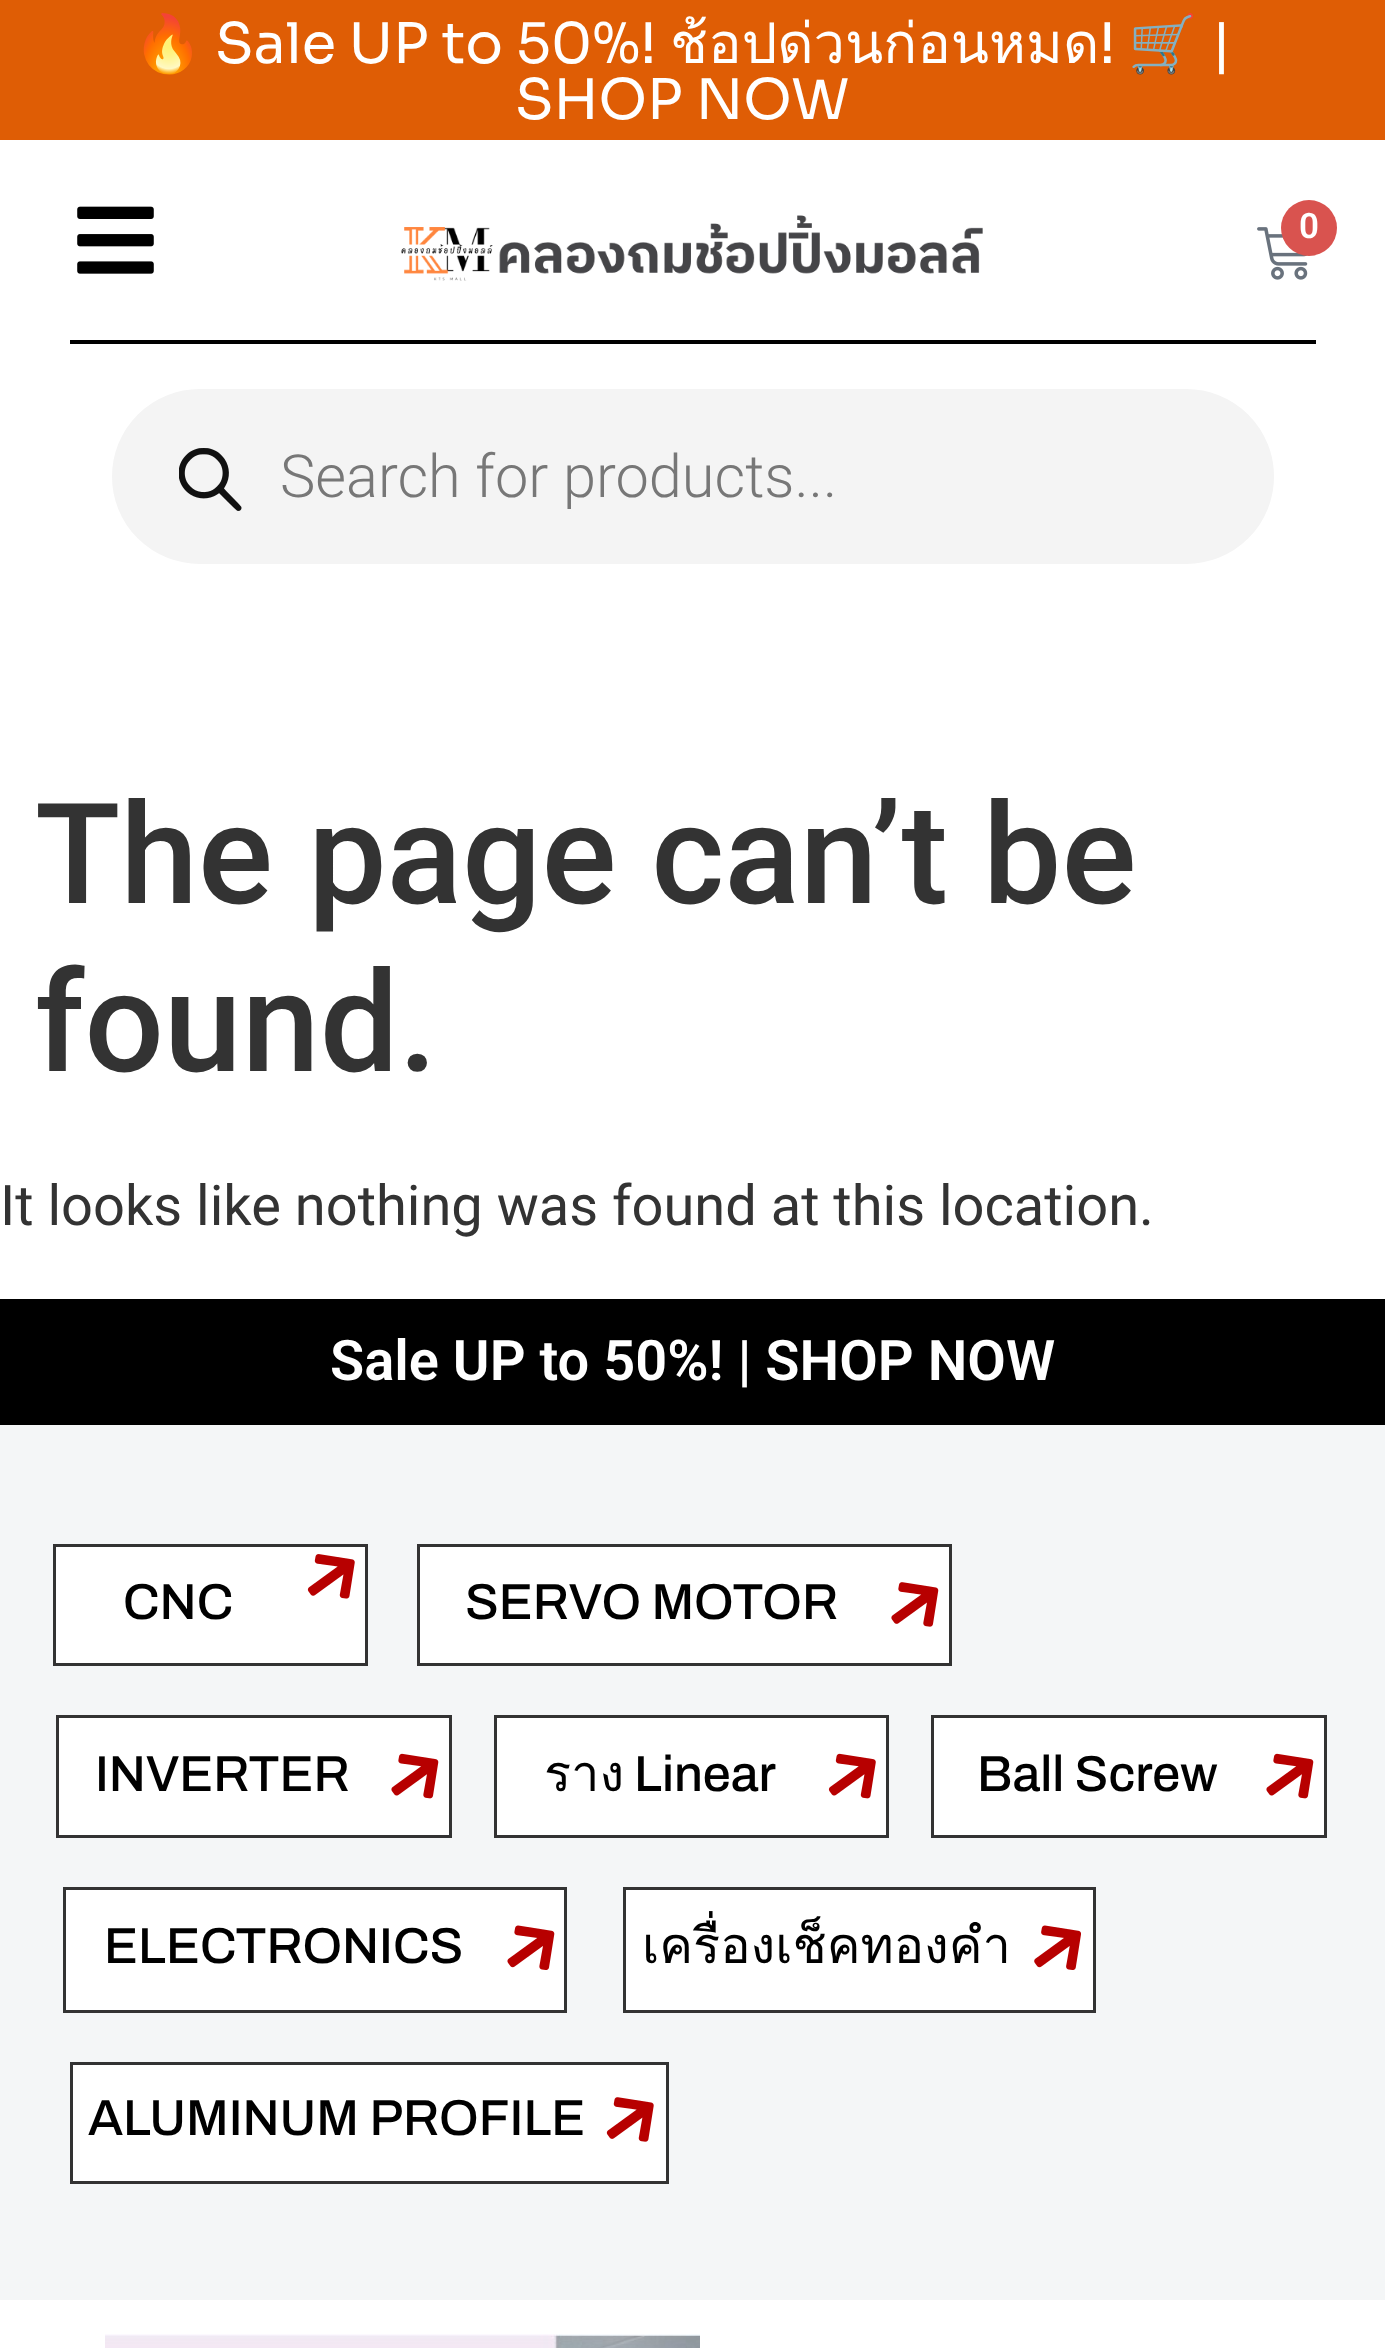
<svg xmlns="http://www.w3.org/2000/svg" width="1385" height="2348">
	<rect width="100%" height="100%" fill="#FFFFFF" />
	<rect x="0" y="0" width="1385" height="140" fill="#DF5D05" />
	<text x="133" y="63" font-family="Noto Color Emoji" font-size="56" fill="#FFFFFF">🔥</text>
	<text x="215" y="63" font-family="Sora" font-size="56" fill="#FFFFFF">Sale UP to 50%!</text>
	<text x="670" y="63" font-family="Loma" font-size="56" fill="#FFFFFF">ช้อปด่วนก่อนหมด</text>
	<text x="1099" y="63" font-family="Sora" font-size="56" fill="#FFFFFF">!</text>
	<text x="1128" y="63" font-family="Noto Color Emoji" font-size="56" fill="#FFFFFF">🛒</text>
	<g font-family="Sora" font-size="56" fill="#FFFFFF">
		<text x="1211" y="63">|</text>
		<text x="515" y="119">SHOP NOW</text>
	</g>
	<image x="77" y="206" width="77" height="68" href="assets/img1.png" />
	<image x="401" y="215" width="582" height="66" href="assets/img2.png" />
	<image x="1257" y="227" width="51" height="53" href="assets/img3.png" />
	<circle cx="1309" cy="228" r="28" fill="#D9534F" />
	<text x="1299" y="238" font-family="Roboto" font-size="35" font-weight="600" fill="#FFFFFF">0</text>
	<rect x="70" y="340" width="1246" height="4" fill="#000000" />
	<rect x="108.5" y="385.5" width="1169" height="182" rx="91" fill="#F4F4F4" stroke="#FFFFFF" stroke-width="7" />
	<image x="179" y="448" width="63" height="63" href="assets/img4.png" />
	<text x="280" y="497" font-family="Roboto" font-size="59.5" font-weight="300" fill="#777777">Search for products...</text>
	<g font-family="Roboto" font-size="140" font-weight="500" fill="#333333">
		<text x="35" y="903">The page can’t be</text>
		<text x="35" y="1071">found.</text>
	</g>
	<text x="0" y="1225" font-family="Roboto" font-size="56" fill="#333333">It looks like nothing was found at this location.</text>
	<rect x="0" y="1299" width="1385" height="126" fill="#000000" />
	<text x="330" y="1380" font-family="Roboto" font-size="56" font-weight="600" fill="#FFFFFF">Sale UP to 50%! | SHOP NOW</text>
	<rect x="0" y="1425" width="1385" height="875" fill="#F4F6F7" />
	<rect x="54.5" y="1545.5" width="312" height="119" fill="#FFFFFF" stroke="#333333" stroke-width="3" />
	<text x="123" y="1619" font-family="Archivo" font-size="50.5" font-weight="500" fill="#000000">CNC</text>
	<image x="307" y="1554" width="48" height="45" href="assets/img5.png" />
	<rect x="418.5" y="1545.5" width="532" height="119" fill="#FFFFFF" stroke="#333333" stroke-width="3" />
	<text x="465" y="1619" font-family="Archivo" font-size="50.5" font-weight="500" fill="#000000">SERVO MOTOR</text>
	<image x="891" y="1582" width="48" height="45" href="assets/img6.png" />
	<rect x="57.5" y="1716.5" width="393" height="120" fill="#FFFFFF" stroke="#333333" stroke-width="3" />
	<text x="95" y="1791" font-family="Archivo" font-size="50.5" font-weight="500" fill="#000000">INVERTER</text>
	<image x="391" y="1753" width="48" height="46" href="assets/img7.png" />
	<rect x="495.5" y="1716.5" width="392" height="120" fill="#FFFFFF" stroke="#333333" stroke-width="3" />
	<text x="544" y="1791" font-family="Loma" font-size="50.5" fill="#000000">ราง</text>
	<text x="634" y="1791" font-family="Archivo" font-size="50.5" font-weight="500" fill="#000000">Linear</text>
	<image x="828" y="1753" width="48" height="46" href="assets/img8.png" />
	<rect x="932.5" y="1716.5" width="393" height="120" fill="#FFFFFF" stroke="#333333" stroke-width="3" />
	<text x="977" y="1791" font-family="Archivo" font-size="50.5" font-weight="500" fill="#000000">Ball Screw</text>
	<image x="1266" y="1753" width="48" height="46" href="assets/img7.png" />
	<rect x="64.5" y="1888.5" width="501" height="123" fill="#FFFFFF" stroke="#333333" stroke-width="3" />
	<text x="104" y="1963" font-family="Archivo" font-size="50.5" font-weight="500" fill="#000000">ELECTRONICS</text>
	<image x="507" y="1925" width="48" height="45" href="assets/img9.png" />
	<rect x="624.5" y="1888.5" width="470" height="123" fill="#FFFFFF" stroke="#333333" stroke-width="3" />
	<text x="642" y="1963" font-family="Loma" font-size="50.5" fill="#000000">เครื่องเช็คทองคำ</text>
	<image x="1034" y="1925" width="47" height="45" href="assets/img10.png" />
	<rect x="71.5" y="2063.5" width="596" height="119" fill="#FFFFFF" stroke="#333333" stroke-width="3" />
	<text x="88" y="2135" font-family="Archivo" font-size="50.5" font-weight="500" fill="#000000">ALUMINUM PROFILE</text>
	<image x="606" y="2097" width="48" height="45" href="assets/img11.png" />
	<image x="105" y="2334" width="595" height="14" href="assets/img12.png" />
</svg>
